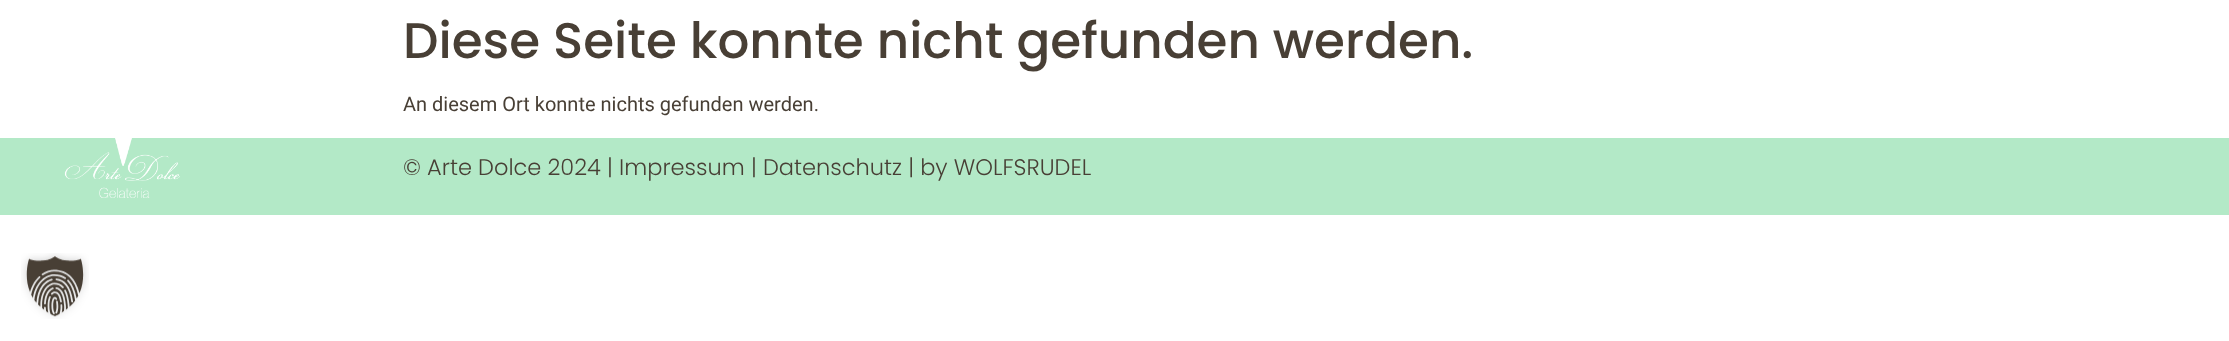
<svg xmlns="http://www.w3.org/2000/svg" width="2229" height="341">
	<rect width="100%" height="100%" fill="#FFFFFF" />
	<text x="403" y="58" font-family="Poppins" font-size="50" font-weight="500" fill="#483F35">Diese Seite konnte nicht gefunden werden.</text>
	<text x="403" y="111" font-family="Roboto" font-size="20" fill="#483F35">An diesem Ort konnte nichts gefunden werden.</text>
	<rect x="0" y="138" width="2229" height="77" fill="#B3E9C7" />
	<image x="64" y="138" width="116" height="60" href="assets/img1.png" />
	<text x="403" y="175" font-family="Poppins" font-size="22.5" font-weight="300" fill="#483F35">© Arte Dolce 2024 | Impressum | Datenschutz | by WOLFSRUDEL</text>
	<image x="21" y="253" width="68" height="66" href="assets/img2.png" />
</svg>
